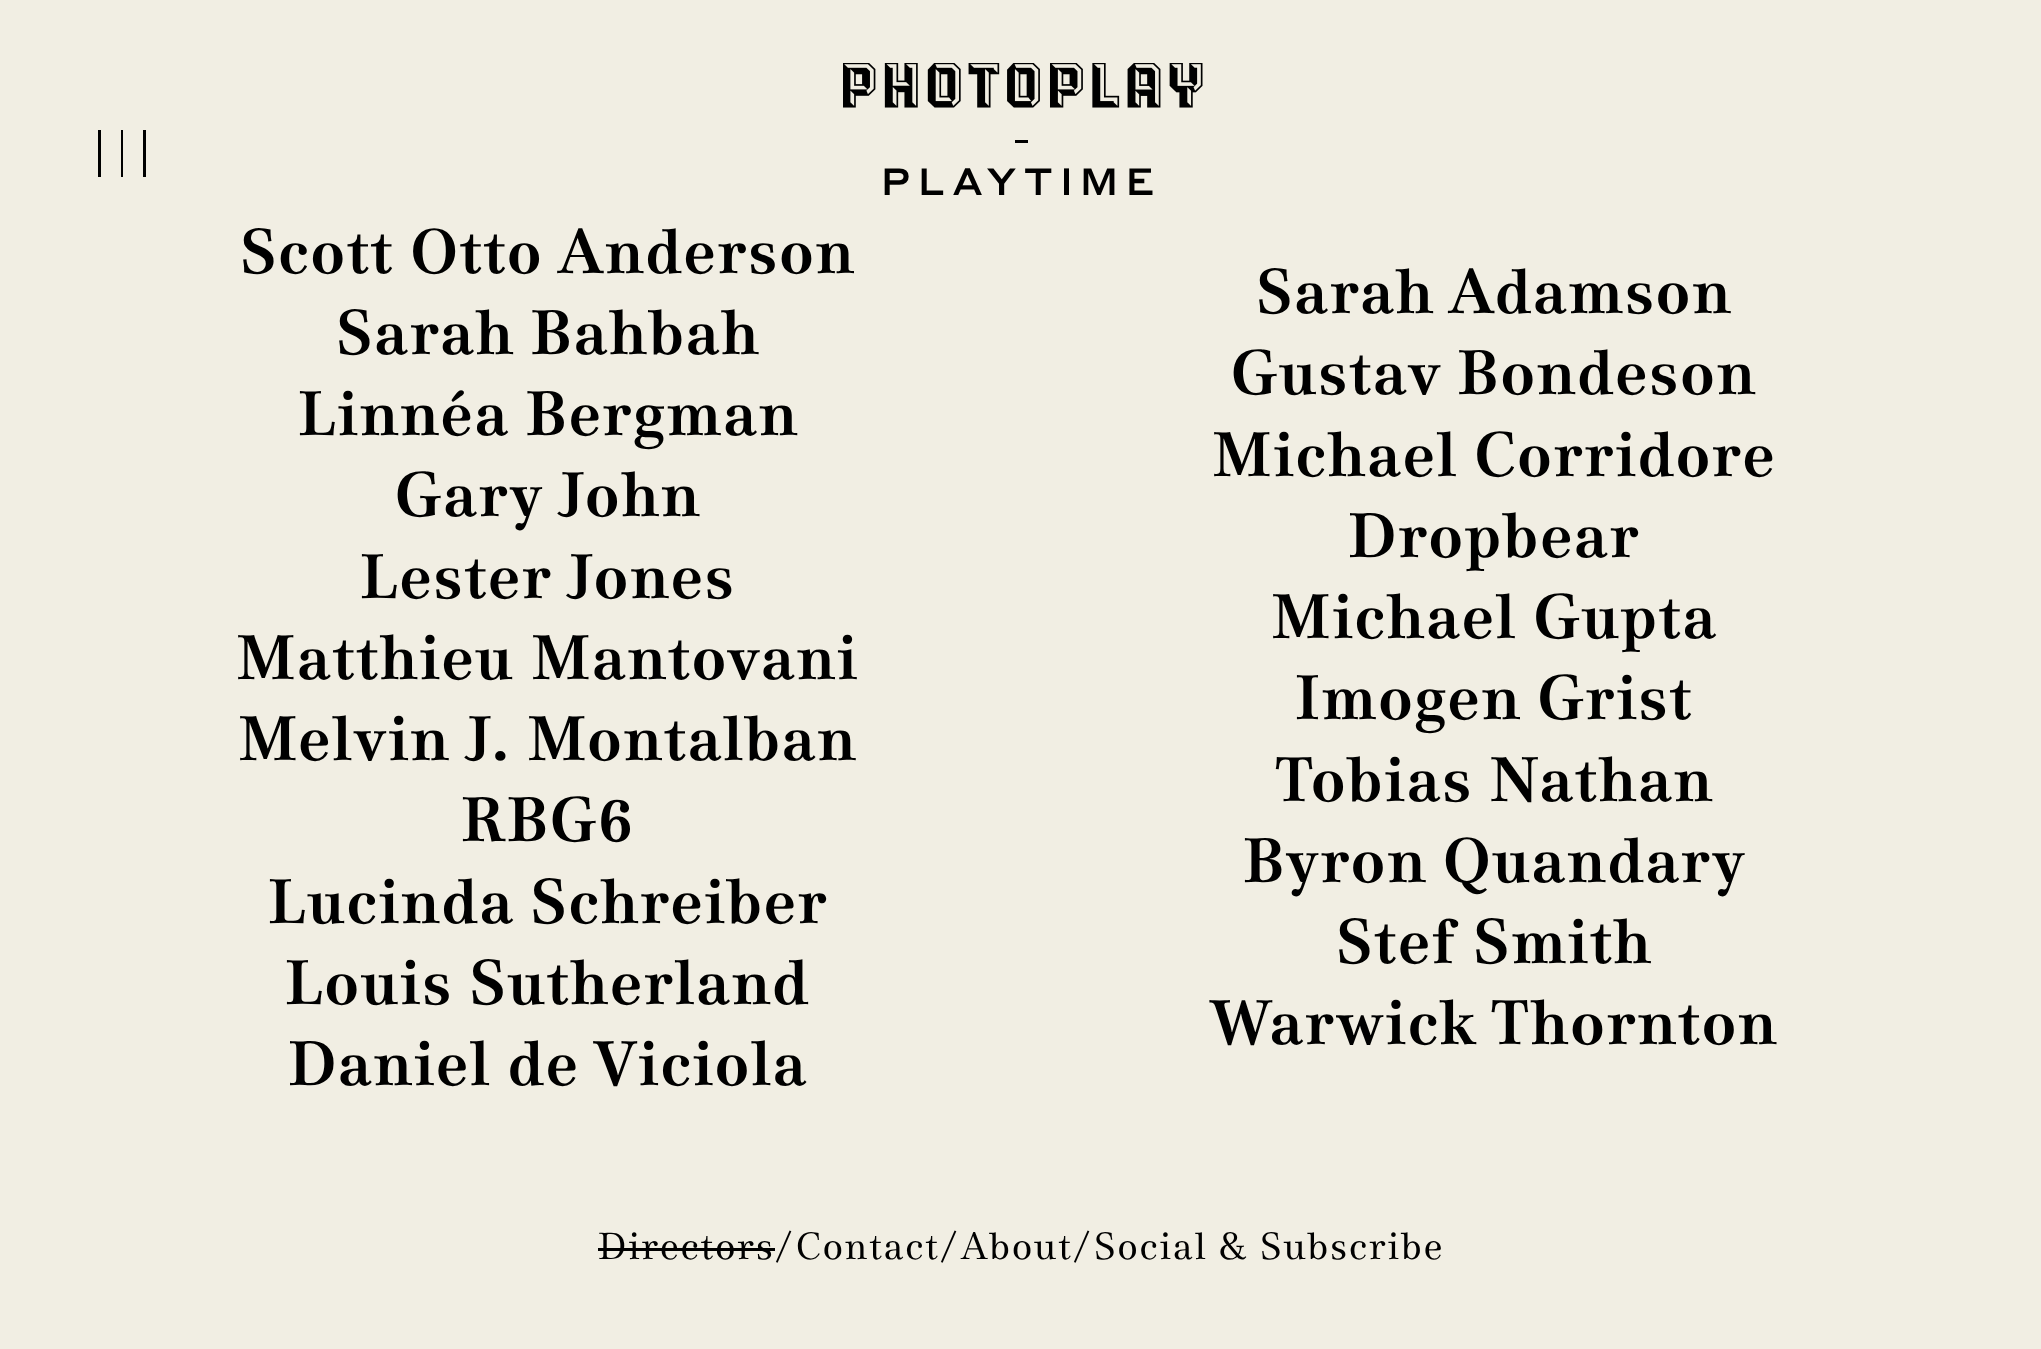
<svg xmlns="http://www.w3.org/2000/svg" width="2041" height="1349">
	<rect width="100%" height="100%" fill="#F1EEE3" />
	<rect x="98" y="130" width="3" height="47" fill="#000000" />
	<rect x="121" y="130" width="2" height="47" fill="#000000" />
	<rect x="143" y="130" width="3" height="47" fill="#000000" />
	<image x="843" y="63" width="360" height="45" href="assets/img1.png" />
	<rect x="1015" y="140" width="13" height="3" fill="#000000" />
	<text x="881" y="195" font-family="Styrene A" font-size="37.5" font-weight="500" letter-spacing="7.5" fill="#000000">PLAYTIME</text>
	<g font-family="'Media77'" font-size="62.5" letter-spacing="2" fill="#000000">
		<text x="240" y="273">Scott Otto Anderson</text>
		<text x="336" y="354">Sarah Bahbah</text>
		<text x="298" y="435">Linnéa Bergman</text>
		<text x="395" y="516">Gary John</text>
		<text x="360" y="598">Lester Jones</text>
		<text x="236" y="679">Matthieu Mantovani</text>
		<text x="238" y="760">Melvin J. Montalban</text>
		<text x="461" y="841">RBG6</text>
		<text x="268" y="923">Lucinda Schreiber</text>
		<text x="285" y="1004">Louis Sutherland</text>
		<text x="288" y="1085">Daniel de Viciola</text>
		<text x="1256" y="313">Sarah Adamson</text>
		<text x="1231" y="394">Gustav Bondeson</text>
		<text x="1212" y="476">Michael Corridore</text>
		<text x="1348" y="557">Dropbear</text>
		<text x="1271" y="638">Michael Gupta</text>
		<text x="1295" y="719">Imogen Grist</text>
		<text x="1275" y="801">Tobias Nathan</text>
		<text x="1243" y="882">Byron Quandary</text>
		<text x="1336" y="963">Stef Smith</text>
		<text x="1210" y="1044">Warwick Thornton</text>
	</g>
	<text x="598" y="1259" font-family="'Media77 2'" font-size="37.5" letter-spacing="2" fill="#000000">Directors</text>
	<rect x="598" y="1248" width="177" height="3" fill="#000000" />
	<g font-family="'Media77 2'" font-size="37.5" letter-spacing="2" fill="#000000">
		<text x="775" y="1259">/</text>
		<text x="796" y="1259">Contact</text>
		<text x="940" y="1259">/</text>
		<text x="961" y="1259">About</text>
		<text x="1073" y="1259">/</text>
		<text x="1094" y="1259">Social &amp; Subscribe</text>
	</g>
</svg>
